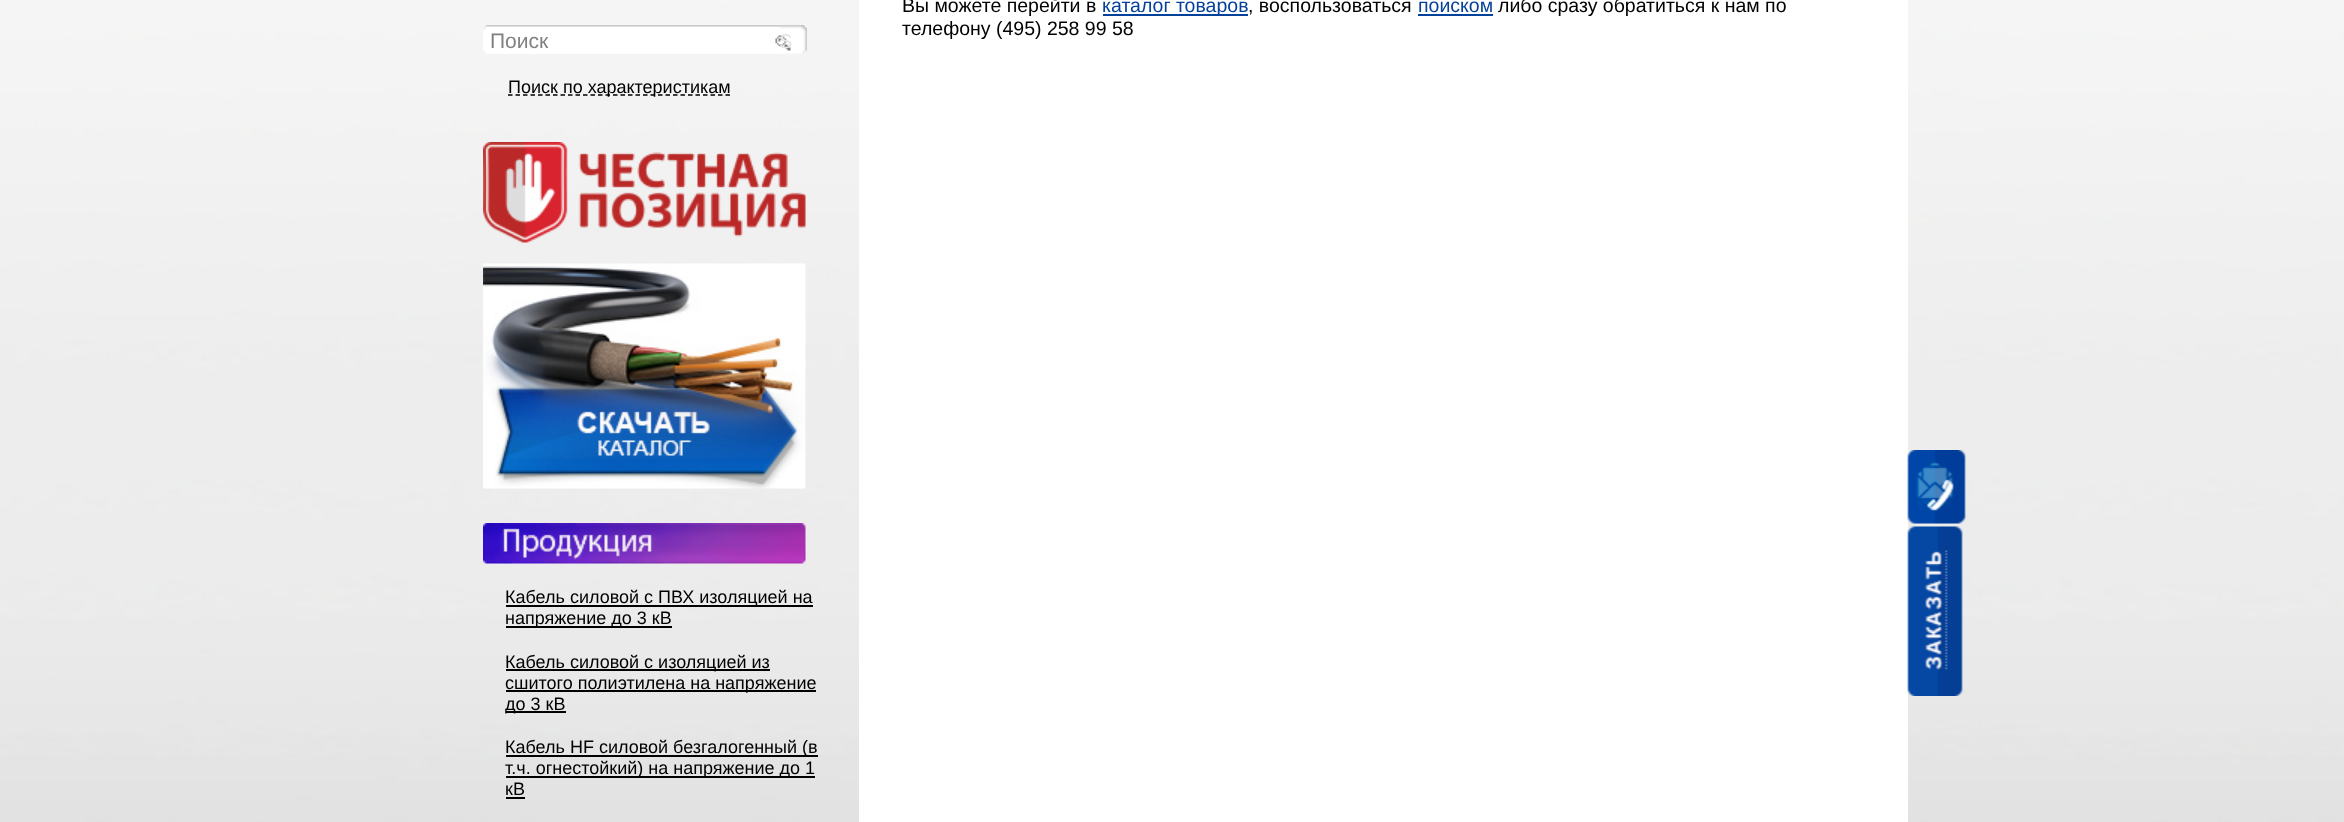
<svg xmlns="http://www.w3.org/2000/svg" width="2344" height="822">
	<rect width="100%" height="100%" fill="#FFFFFF" />
	<image x="0" y="0" width="2344" height="822" href="assets/img1.png" />
	<rect x="859" y="0" width="1049" height="822" fill="#FFFFFF" />
	<text x="902" y="12" font-family="Liberation Sans" font-size="19.5" fill="#000000">Вы можете перейти в</text>
	<rect x="1103" y="14" width="145" height="2" fill="#04419A" />
	<text x="1102" y="12" font-family="Liberation Sans" font-size="19.5" fill="#04419A">каталог товаров</text>
	<text x="1248" y="12" font-family="Liberation Sans" font-size="19.5" fill="#000000">, воспользоваться</text>
	<text x="1418" y="12" font-family="Liberation Sans" font-size="19.5" fill="#04419A">поиском</text>
	<rect x="1418" y="14" width="75" height="2" fill="#04419A" />
	<g font-family="Liberation Sans" font-size="19.5" fill="#000000">
		<text x="1498" y="12">либо сразу обратиться к нам по</text>
		<text x="902" y="35">телефону (495) 258 99 58</text>
	</g>
	<image x="483" y="25" width="324" height="29" href="assets/img2.png" />
	<rect x="486" y="27" width="294" height="27" fill="#FFFFFF" />
	<text x="490" y="48" font-family="Liberation Sans" font-size="21" fill="#818181">Поиск</text>
	<image x="775" y="35" width="16" height="16" href="assets/img3.png" />
	<text x="779" y="48" font-family="Liberation Sans" font-size="20" fill="#E4E4E4">S</text>
	<path d="M508 95H730.5" fill="none" stroke="#000000" stroke-width="1.5" stroke-dasharray="4.5 3" />
	<text x="508" y="93" font-family="Liberation Sans" font-size="18" fill="#000000">Поиск по характеристикам</text>
	<image x="483" y="142" width="323" height="101" href="assets/img4.png" />
	<image x="483" y="263" width="323" height="226" href="assets/img5.png" />
	<image x="483" y="523" width="323" height="41" href="assets/img6.png" />
	<rect x="506" y="605" width="307" height="2" fill="#000000" />
	<text x="505" y="603" font-family="Liberation Sans" font-size="18" fill="#000000">Кабель силовой с ПВХ изоляцией на</text>
	<rect x="506" y="626" width="166" height="2" fill="#000000" />
	<text x="505" y="624" font-family="Liberation Sans" font-size="18" fill="#000000">напряжение до 3 кВ</text>
	<rect x="506" y="669" width="264" height="2" fill="#000000" />
	<text x="505" y="668" font-family="Liberation Sans" font-size="18" fill="#000000">Кабель силовой с изоляцией из</text>
	<rect x="506" y="690" width="310" height="2" fill="#000000" />
	<text x="505" y="689" font-family="Liberation Sans" font-size="18" fill="#000000">сшитого полиэтилена на напряжение</text>
	<rect x="506" y="711" width="60" height="2" fill="#000000" />
	<text x="505" y="710" font-family="Liberation Sans" font-size="18" fill="#000000">до 3 кВ</text>
	<rect x="506" y="755" width="312" height="2" fill="#000000" />
	<text x="505" y="753" font-family="Liberation Sans" font-size="18" fill="#000000">Кабель HF силовой безгалогенный (в</text>
	<rect x="506" y="776" width="309" height="2" fill="#000000" />
	<g font-family="Liberation Sans" font-size="18" fill="#000000">
		<text x="505" y="774">т.ч. огнестойкий) на напряжение до 1</text>
		<text x="505" y="795">кВ</text>
	</g>
	<rect x="506" y="797" width="19" height="2" fill="#000000" />
	<image x="1907" y="450" width="59" height="74" href="assets/img7.png" />
	<image x="1907" y="526" width="56" height="170" href="assets/img8.png" />
</svg>
